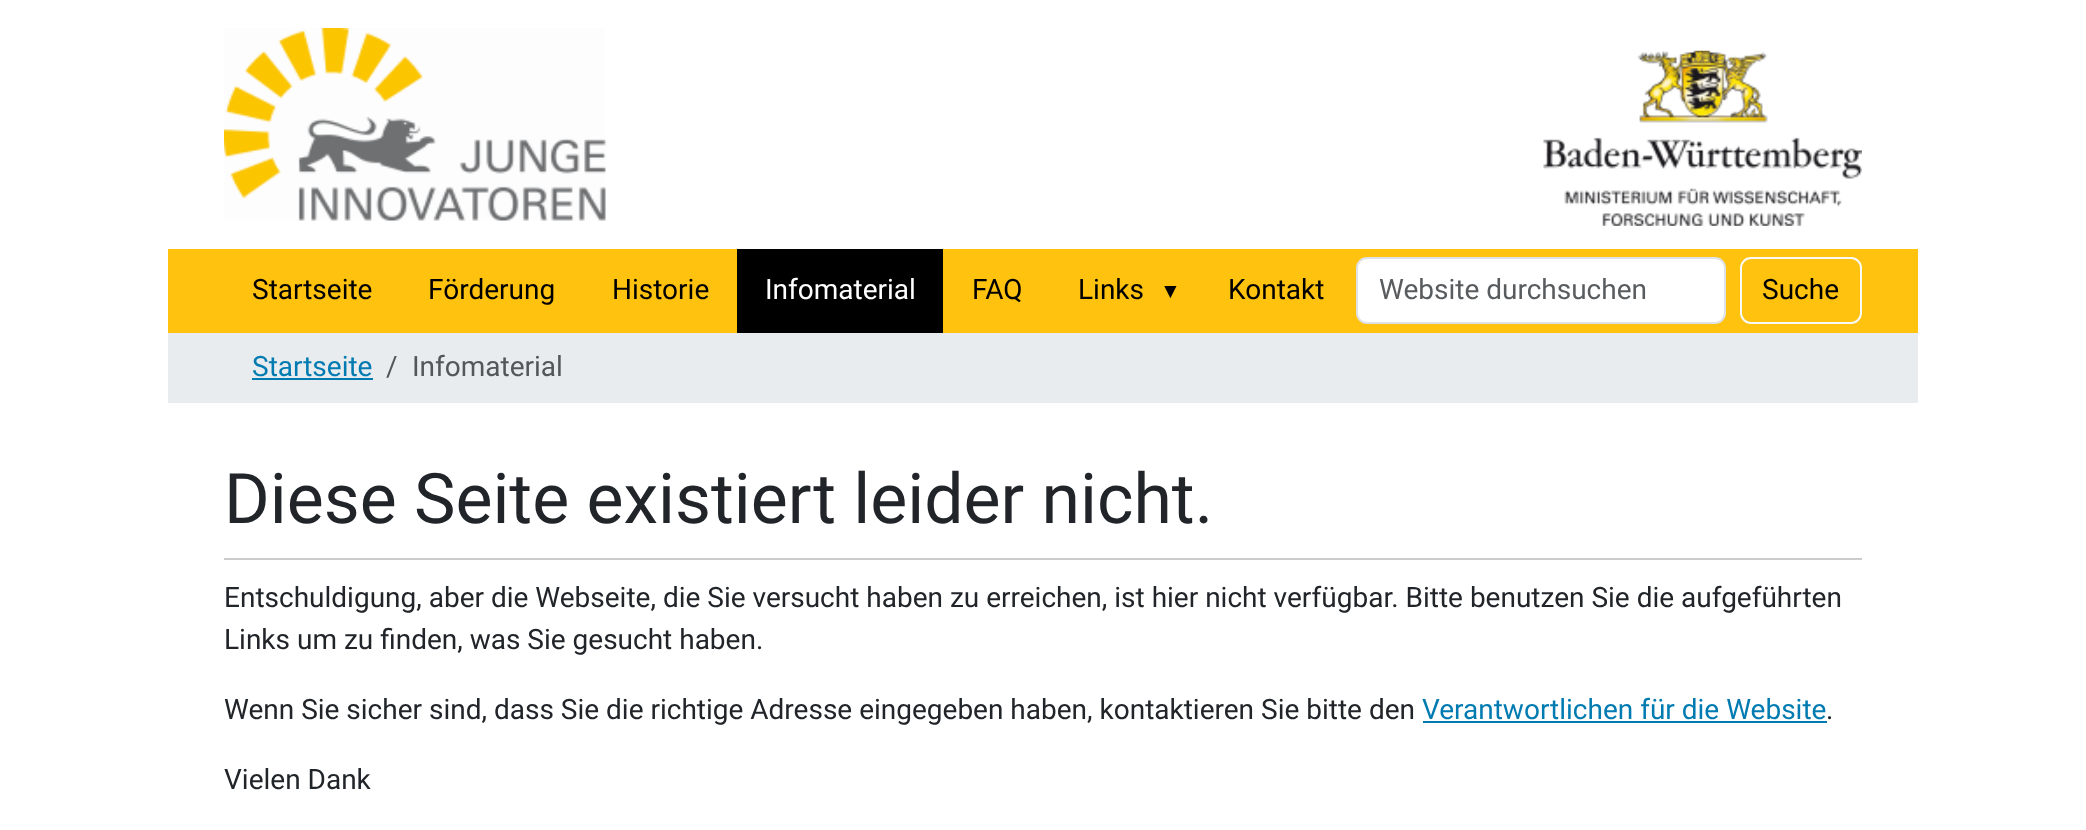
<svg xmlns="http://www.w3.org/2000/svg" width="2086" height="830">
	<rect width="100%" height="100%" fill="#FFFFFF" />
	<image x="224" y="28" width="382" height="193" href="assets/img1.png" />
	<image x="1543" y="50" width="319" height="176" href="assets/img2.png" />
	<rect x="168" y="249" width="1750" height="84" fill="#FFC20F" />
	<g font-family="Roboto" font-size="28" fill="#000000">
		<text x="252" y="299">Startseite</text>
		<text x="428" y="299">Förderung</text>
		<text x="612" y="299">Historie</text>
	</g>
	<rect x="737" y="249" width="206" height="84" fill="#000000" />
	<text x="765" y="299" font-family="Roboto" font-size="28" fill="#FFFFFF">Infomaterial</text>
	<g font-family="Roboto" font-size="28" fill="#000000">
		<text x="972" y="299">FAQ</text>
		<text x="1078" y="299">Links</text>
	</g>
	<text x="1160" y="298" font-family="Liberation Sans" font-size="21" fill="#000000">▼</text>
	<text x="1228" y="299" font-family="Roboto" font-size="28" fill="#000000">Kontakt</text>
	<rect x="1357" y="258" width="368" height="65" rx="10" fill="#FFFFFF" stroke="#DEE2E6" stroke-width="2" />
	<text x="1379" y="299" font-family="Roboto" font-size="28" fill="#595C5F">Website durchsuchen</text>
	<rect x="1741" y="258" width="120" height="65" rx="10" fill="none" stroke="#F8F9FA" stroke-width="2" />
	<text x="1762" y="299" font-family="Roboto" font-size="28" fill="#000000">Suche</text>
	<rect x="168" y="333" width="1750" height="70" fill="#E9ECEF" />
	<text x="252" y="376" font-family="Roboto" font-size="28" fill="#007BB1">Startseite</text>
	<rect x="252" y="378" width="121" height="2" fill="#007BB1" />
	<g font-family="Roboto" font-size="28" fill="#53575B">
		<text x="386" y="376">/</text>
		<text x="412" y="376">Infomaterial</text>
	</g>
	<rect x="224" y="558" width="1638" height="2" fill="#CCCCCC" />
	<text x="224" y="523" font-family="Roboto" font-size="69.75" fill="#212529">Diese Seite existiert leider nicht.</text>
	<g font-family="Roboto" font-size="28" fill="#212529">
		<text x="224" y="607">Entschuldigung, aber die Webseite, die Sie versucht haben zu erreichen, ist hier nicht verfügbar. Bitte benutzen Sie die aufgeführten</text>
		<text x="224" y="649">Links um zu finden, was Sie gesucht haben.</text>
		<text x="224" y="719">Wenn Sie sicher sind, dass Sie die richtige Adresse eingegeben haben, kontaktieren Sie bitte den</text>
	</g>
	<text x="1422" y="719" font-family="Roboto" font-size="28" fill="#007BB1">Verantwortlichen für die Website</text>
	<rect x="1423" y="721" width="404" height="2" fill="#007BB1" />
	<g font-family="Roboto" font-size="28" fill="#212529">
		<text x="1826" y="719">.</text>
		<text x="224" y="789">Vielen Dank</text>
	</g>
</svg>
